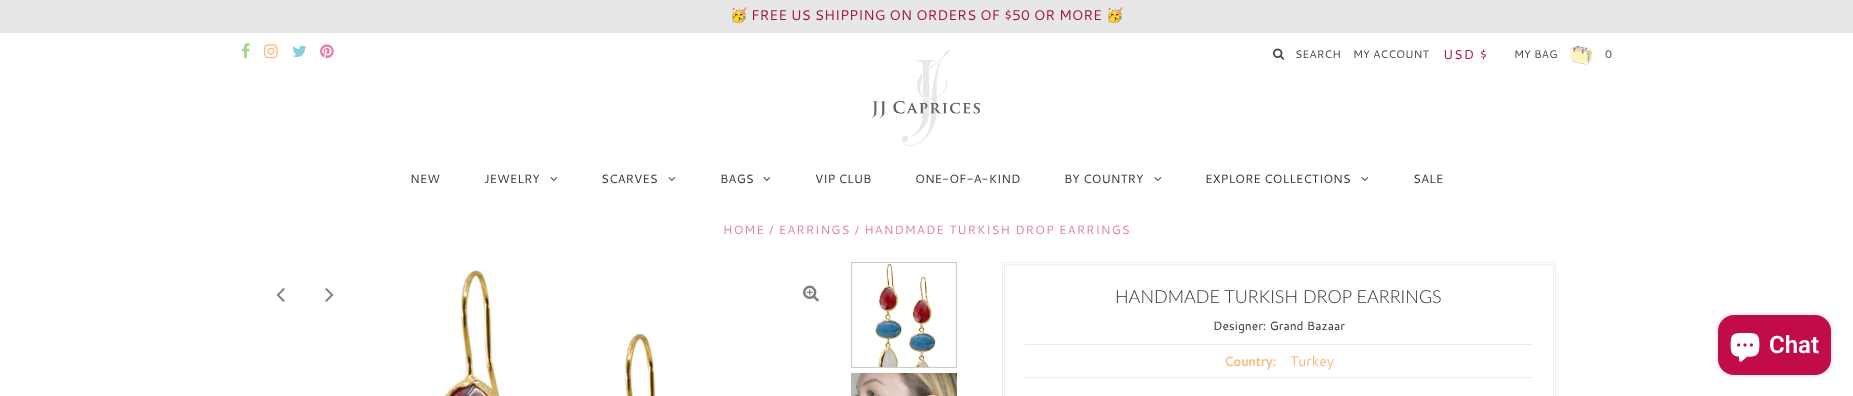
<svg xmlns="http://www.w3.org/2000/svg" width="1853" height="396">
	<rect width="100%" height="100%" fill="#FFFFFF" />
	<rect x="0" y="0" width="1853" height="33" fill="#E7E7E8" />
	<text x="730" y="20" font-family="Noto Color Emoji" font-size="14" fill="#A4124E">🥳</text>
	<text x="751" y="20" font-family="Cantarell" font-size="14" fill="#A4124E">FREE US SHIPPING ON ORDERS OF $50 OR MORE</text>
	<text x="1106" y="20" font-family="Noto Color Emoji" font-size="14" fill="#A4124E">🥳</text>
	<image x="241" y="43" width="9" height="16" href="assets/img1.png" />
	<image x="264" y="44" width="14" height="15" href="assets/img2.png" />
	<image x="292" y="45" width="15" height="12" href="assets/img3.png" />
	<image x="320" y="44" width="14" height="15" href="assets/img4.png" />
	<image x="1273" y="48" width="12" height="12" href="assets/img5.png" />
	<g font-family="Cantarell" font-size="11" fill="#444444">
		<text x="1295" y="58">SEARCH</text>
		<text x="1353" y="58">MY ACCOUNT</text>
	</g>
	<text x="1443" y="59" font-family="Cantarell" font-size="13" letter-spacing="1" fill="#A4124E">USD $</text>
	<text x="1514" y="58" font-family="Cantarell" font-size="11" fill="#444444">MY BAG</text>
	<image x="1570" y="45" width="23" height="20" href="assets/img6.png" />
	<text x="1605" y="58" font-family="Cantarell" font-size="11" fill="#444444">0</text>
	<image x="872" y="49" width="108" height="97" href="assets/img7.png" />
	<g font-family="Cantarell" font-size="12" fill="#333333">
		<text x="410" y="183">NEW</text>
		<text x="484" y="183">JEWELRY</text>
	</g>
	<image x="550" y="177" width="8" height="4" href="assets/img8.png" />
	<text x="601" y="183" font-family="Cantarell" font-size="12" fill="#333333">SCARVES</text>
	<image x="668" y="177" width="8" height="4" href="assets/img8.png" />
	<text x="720" y="183" font-family="Cantarell" font-size="12" fill="#333333">BAGS</text>
	<image x="763" y="177" width="8" height="4" href="assets/img8.png" />
	<g font-family="Cantarell" font-size="12" fill="#333333">
		<text x="815" y="183">VIP CLUB</text>
		<text x="915" y="183">ONE-OF-A-KIND</text>
		<text x="1064" y="183">BY COUNTRY</text>
	</g>
	<image x="1154" y="177" width="8" height="4" href="assets/img8.png" />
	<text x="1205" y="183" font-family="Cantarell" font-size="12" fill="#333333">EXPLORE COLLECTIONS</text>
	<image x="1361" y="177" width="8" height="4" href="assets/img8.png" />
	<text x="1413" y="183" font-family="Cantarell" font-size="12" fill="#333333">SALE</text>
	<text x="723" y="234" font-family="Cantarell" font-size="12" letter-spacing="1" fill="#E47EA8">HOME / EARRINGS / HANDMADE TURKISH DROP EARRINGS</text>
	<image x="276" y="288" width="9" height="14" href="assets/img9.png" />
	<image x="325" y="288" width="9" height="14" href="assets/img10.png" />
	<image x="443" y="269" width="215" height="127" href="assets/img11.png" />
	<image x="803" y="285" width="16" height="17" href="assets/img12.png" />
	<image x="874" y="263" width="62" height="104" href="assets/img13.png" />
	<rect x="851.5" y="262.5" width="105" height="105" fill="none" stroke="#CCCACA" />
	<image x="851" y="373" width="106" height="23" href="assets/img14.png" />
	<rect x="1002.5" y="262.5" width="553" height="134" fill="none" stroke="#F0F0F0" />
	<rect x="1004.5" y="264.5" width="549" height="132" fill="none" stroke="#F0F0F0" />
	<text x="1115" y="303" font-family="Lato" font-size="18" font-weight="300" fill="#333333">HANDMADE TURKISH DROP EARRINGS</text>
	<text x="1213" y="330" font-family="Cantarell" font-size="12" fill="#333333">Designer: Grand Bazaar</text>
	<rect x="1025" y="344" width="508" height="1" fill="#EBEBEB" />
	<rect x="1025" y="377" width="508" height="1" fill="#EBEBEB" />
	<text x="1224" y="366" font-family="Cantarell" font-size="13" font-weight="700" fill="#FBB87B">Country:</text>
	<text x="1290" y="366" font-family="Cantarell" font-size="14" fill="#FBB87B">Turkey</text>
	<rect x="1718" y="315" width="113" height="60" rx="16" fill="#000000" fill-opacity="0.15" filter="blur(2.5px)" />
	<rect x="1718" y="315" width="113" height="60" rx="16" fill="#C10C48" />
	<image x="1730" y="333" width="30" height="29" href="assets/img15.png" />
	<text x="1769" y="353" font-family="Roboto" font-size="24" font-weight="600" fill="#FFFFFF">Chat</text>
</svg>
